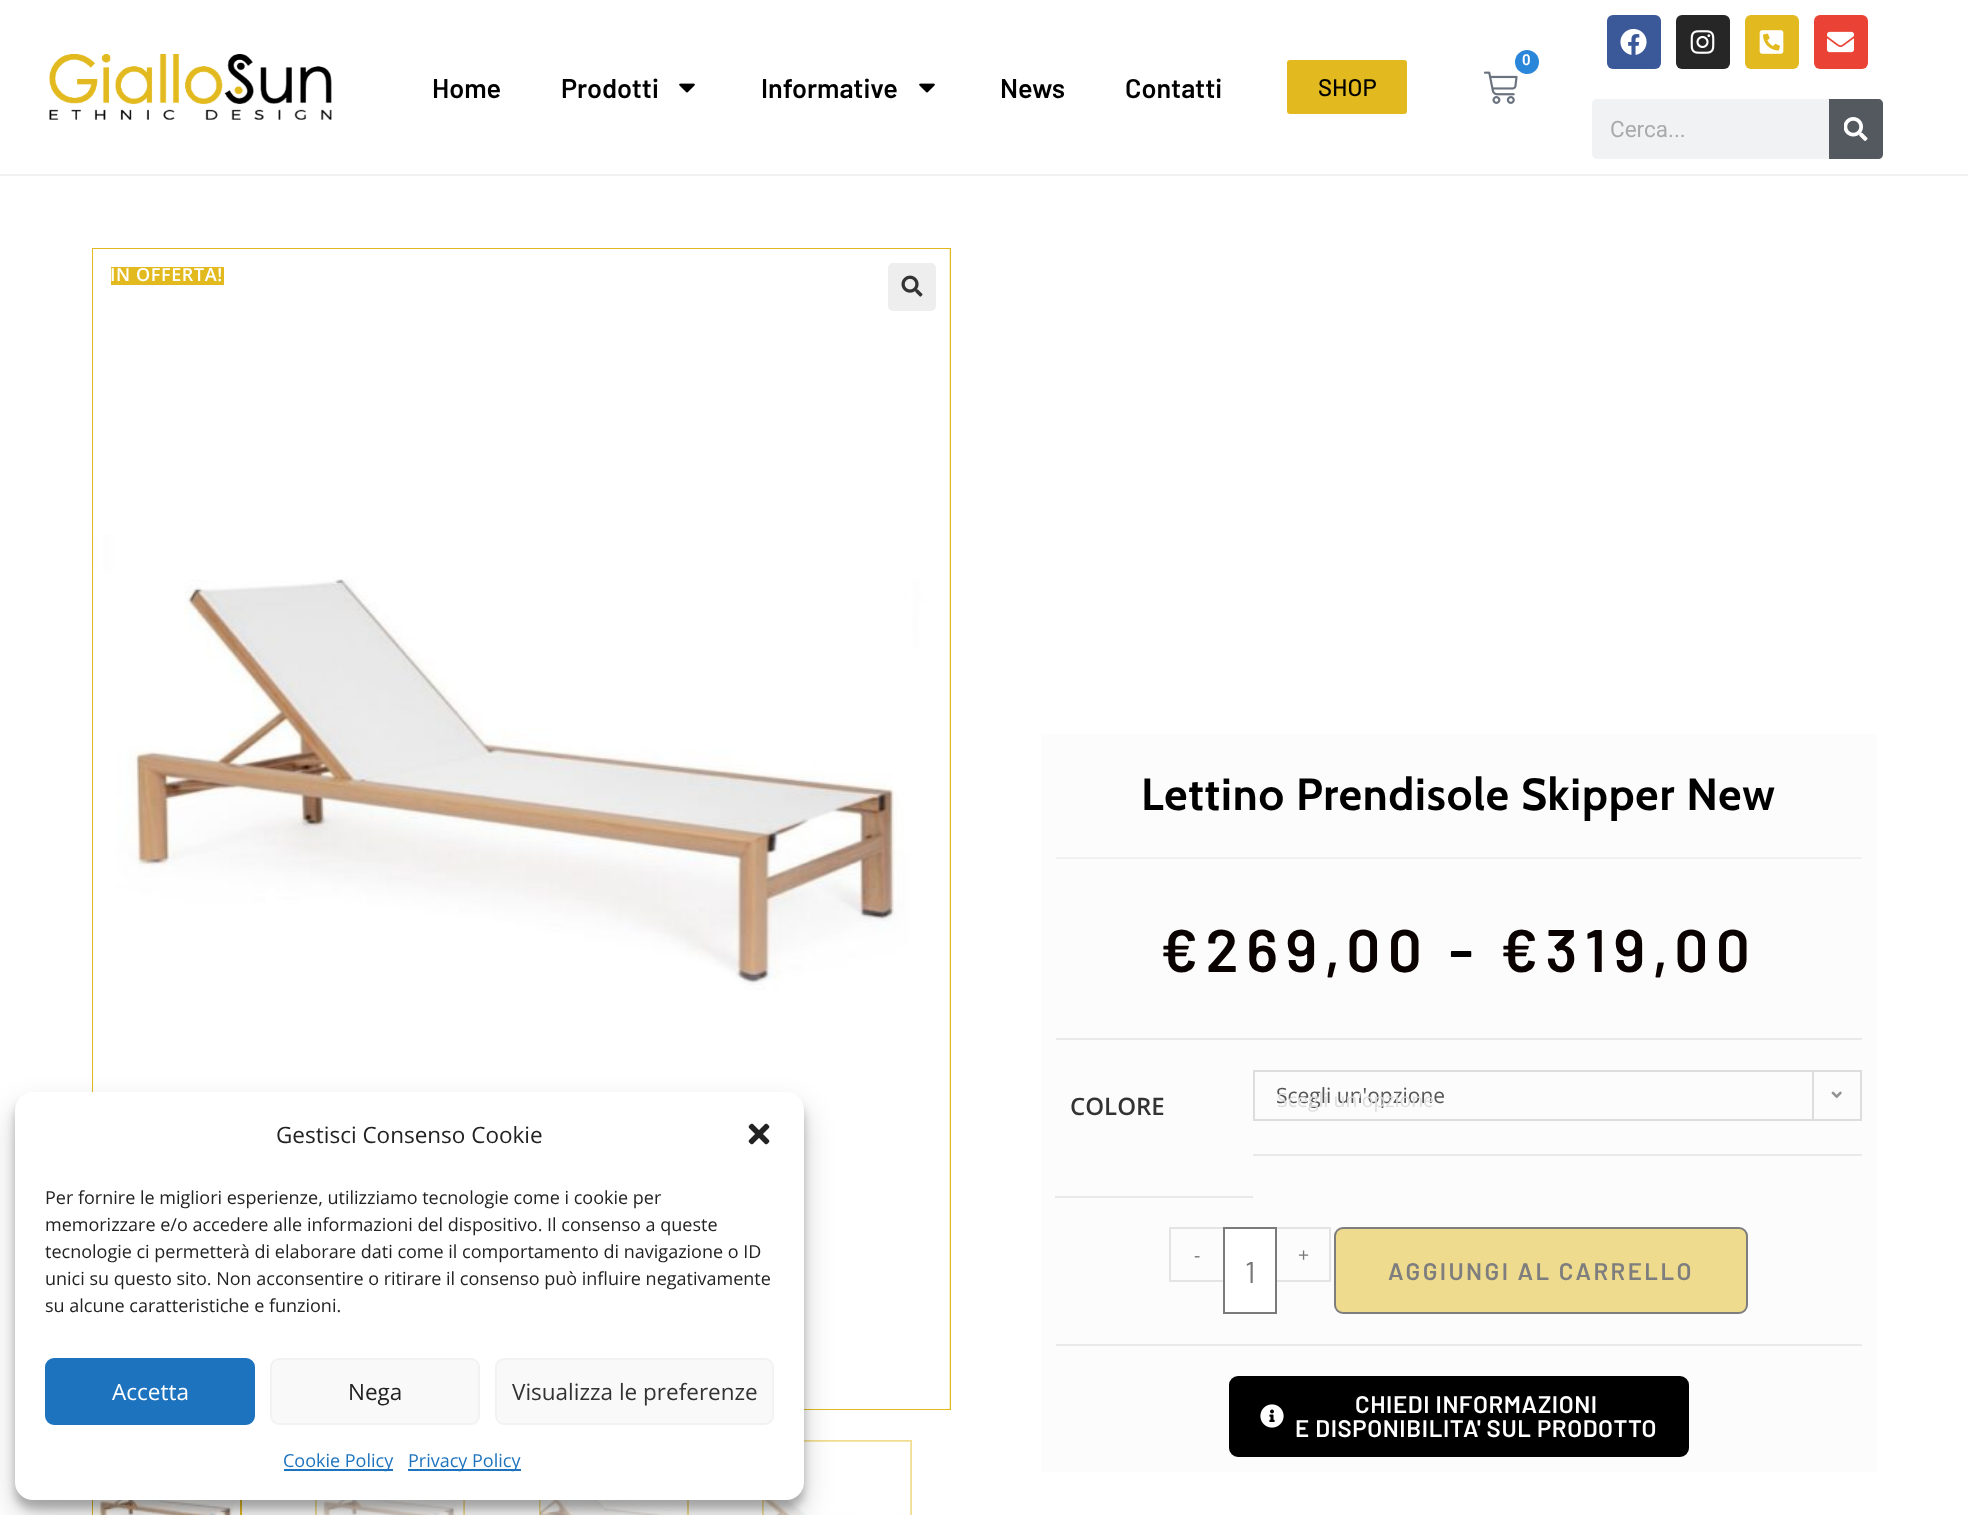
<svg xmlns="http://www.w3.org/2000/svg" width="1968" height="1515">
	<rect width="100%" height="100%" fill="#FFFFFF" />
	<rect x="0" y="174" width="1968" height="2" fill="#F1F1F1" />
	<image x="49" y="54" width="283" height="66" href="assets/img1.png" />
	<image x="1484" y="71" width="34" height="33" href="assets/img2.png" />
	<circle cx="1527" cy="62" r="12" fill="#2A86D8" />
	<text x="1522" y="65" font-family="Roboto" font-size="15" font-weight="600" fill="#FFFFFF">0</text>
	<g font-family="Barlow" font-size="27" font-weight="600" fill="#000000">
		<text x="432" y="98">Home</text>
		<text x="561" y="98">Prodotti</text>
	</g>
	<image x="679" y="83" width="16" height="10" href="assets/img3.png" />
	<text x="761" y="98" font-family="Barlow" font-size="27" font-weight="600" fill="#000000">Informative</text>
	<image x="919" y="83" width="16" height="10" href="assets/img3.png" />
	<g font-family="Barlow" font-size="27" font-weight="600" fill="#000000">
		<text x="1000" y="98">News</text>
		<text x="1125" y="98">Contatti</text>
	</g>
	<rect x="1287" y="60" width="120" height="54" rx="3" fill="#E2BA1F" />
	<text x="1318" y="96" font-family="Barlow" font-size="24" font-weight="500" fill="#000000">SHOP</text>
	<rect x="1607" y="15" width="54" height="54" rx="6" fill="#3B5998" />
	<image x="1620" y="29" width="27" height="26" href="assets/img4.png" />
	<rect x="1676" y="15" width="54" height="54" rx="6" fill="#262626" />
	<image x="1690" y="30" width="25" height="24" href="assets/img5.png" />
	<rect x="1745" y="15" width="54" height="54" rx="6" fill="#E2BA1F" />
	<image x="1759" y="30" width="25" height="24" href="assets/img6.png" />
	<rect x="1814" y="15" width="54" height="54" rx="6" fill="#EA4335" />
	<image x="1827" y="31" width="27" height="22" href="assets/img7.png" />
	<rect x="1592" y="99" width="291" height="60" rx="5" fill="#F1F2F3" />
	<text x="1610" y="137" font-family="Roboto" font-size="22.5" fill="#AAAAAA">Cerca...</text>
	<path d="M1829 99H1878C1881 99 1883 101 1883 104V154C1883 157 1881 159 1878 159H1829Z" fill="#54595F" />
	<image x="1844" y="117" width="24" height="24" href="assets/img8.png" />
	<rect x="93" y="249" width="857" height="1160" fill="none" stroke="#E2BA1F" stroke-width="2" />
	<rect x="949" y="249" width="1" height="1160" fill="#F0DC8F" />
	<image x="93" y="249" width="857" height="1160" href="assets/img9.png" />
	<rect x="888" y="263" width="48" height="48" rx="5" fill="#EEEEEE" />
	<image x="901" y="275" width="22" height="22" href="assets/img10.png" />
	<rect x="93" y="1441" width="148" height="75" fill="none" stroke="#E2BA1F" stroke-width="2" />
	<image x="93" y="1500" width="147" height="15" href="assets/img11.png" />
	<rect x="316" y="1441" width="148" height="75" fill="none" stroke="#F1DD8F" stroke-width="2" />
	<image x="316" y="1500" width="148" height="15" href="assets/img12.png" />
	<rect x="540" y="1441" width="148" height="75" fill="none" stroke="#F1DD8F" stroke-width="2" />
	<image x="540" y="1500" width="147" height="15" href="assets/img13.png" />
	<rect x="763" y="1441" width="148" height="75" fill="none" stroke="#F1DD8F" stroke-width="2" />
	<image x="763" y="1441" width="148" height="74" href="assets/img14.png" />
	<rect x="111" y="267" width="113" height="18" fill="#E2BA1F" />
	<text x="110" y="281" font-family="Open Sans" font-size="18" font-weight="600" letter-spacing="0.6" fill="#FFFFFF">IN OFFERTA!</text>
	<rect x="1041" y="734" width="836" height="738" fill="#FCFCFC" />
	<rect x="1056" y="857" width="806" height="2" fill="#F1F1F1" />
	<text x="1141" y="810" font-family="Cabin" font-size="45" font-weight="700" letter-spacing="0.9" fill="#000000">Lettino Prendisole Skipper New</text>
	<text x="1160" y="972" font-family="Barlow" font-size="60" font-weight="600" letter-spacing="7.5" fill="#0A0101">€269,00</text>
	<text x="1449" y="972" font-family="Barlow" font-size="60" font-weight="600" letter-spacing="7.5" fill="#000000">-</text>
	<text x="1500" y="972" font-family="Barlow" font-size="60" font-weight="600" letter-spacing="7.5" fill="#0A0101">€319,00</text>
	<rect x="1056" y="1038" width="806" height="2" fill="#EAEAEA" />
	<rect x="1056" y="1344" width="806" height="2" fill="#EAEAEA" />
	<rect x="1055" y="1196" width="198" height="2" fill="#E9E9E9" />
	<text x="1070" y="1115" font-family="Open Sans" font-size="24" font-weight="600" fill="#333333">COLORE</text>
	<rect x="1253" y="1154" width="609" height="2" fill="#E9E9E9" />
	<rect x="1254" y="1071" width="607" height="49" fill="none" stroke="#DDDDDD" stroke-width="2" />
	<text x="1276" y="1103" font-family="Open Sans" font-size="21" fill="#555555">Scegli un'opzione</text>
	<rect x="1812" y="1071" width="2" height="48" fill="#DDDDDD" />
	<image x="1831" y="1091" width="11" height="8" href="assets/img15.png" />
	<text x="1277" y="1107" font-family="Open Sans" font-size="19.5" fill="#DDDDDD">Scegli un'opzione</text>
	<rect x="1169" y="1227" width="54" height="2" fill="#E4E4E4" />
	<rect x="1169" y="1280" width="54" height="2" fill="#E4E4E4" />
	<rect x="1169" y="1227" width="2" height="54" fill="#E4E4E4" />
	<text x="1194" y="1262" font-family="Open Sans" font-size="19.5" fill="#777777">-</text>
	<rect x="1277" y="1227" width="54" height="2" fill="#E4E4E4" />
	<rect x="1329" y="1227" width="2" height="54" fill="#E4E4E4" />
	<rect x="1277" y="1280" width="54" height="2" fill="#E4E4E4" />
	<text x="1298" y="1262" font-family="Open Sans" font-size="19.5" fill="#777777">+</text>
	<rect x="1224" y="1228" width="52" height="85" fill="#FFFFFF" stroke="#7A7A7A" stroke-width="2" />
	<text x="1245" y="1283" font-family="Barlow" font-size="30" fill="#777777">1</text>
	<rect x="1335" y="1228" width="412" height="85" rx="8" fill="#EFDB8E" stroke="#7E7E7E" stroke-width="2" />
	<text x="1388" y="1280" font-family="Barlow" font-size="24" font-weight="600" letter-spacing="2.4" fill="#7E7E7E">AGGIUNGI AL CARRELLO</text>
	<rect x="1230" y="1377" width="458" height="79" rx="8" fill="#000000" stroke="#000000" stroke-width="2" />
	<image x="1260" y="1404" width="24" height="24" href="assets/img16.png" />
	<g font-family="Barlow" font-size="24" font-weight="600" letter-spacing="0.6" fill="#FFFFFF">
		<text x="1355" y="1413">CHIEDI INFORMAZIONI</text>
		<text x="1295" y="1437">E DISPONIBILITA' SUL PRODOTTO</text>
	</g>
	<rect x="15" y="1101" width="789" height="408" rx="18" fill="#000000" fill-opacity="0.23" filter="blur(4.5px)" />
	<rect x="15" y="1107" width="789" height="408" rx="18" fill="#000000" fill-opacity="0.19" filter="blur(15px)" />
	<rect x="15" y="1092" width="789" height="408" rx="18" fill="#FFFFFF" />
	<text x="276" y="1143" font-family="Open Sans" font-size="22.5" fill="#222222">Gestisci Consenso Cookie</text>
	<image x="748" y="1123" width="22" height="22" href="assets/img17.png" />
	<g font-family="Open Sans" font-size="18" fill="#222222">
		<text x="45" y="1204">Per fornire le migliori esperienze, utilizziamo tecnologie come i cookie per</text>
		<text x="45" y="1231">memorizzare e/o accedere alle informazioni del dispositivo. Il consenso a queste</text>
		<text x="45" y="1258">tecnologie ci permetterà di elaborare dati come il comportamento di navigazione o ID</text>
		<text x="45" y="1285">unici su questo sito. Non acconsentire o ritirare il consenso può influire negativamente</text>
		<text x="45" y="1312">su alcune caratteristiche e funzioni.</text>
	</g>
	<rect x="46" y="1359" width="208" height="65" rx="8" fill="#1E73BE" stroke="#1E73BE" stroke-width="2" />
	<text x="112" y="1400" font-family="Open Sans" font-size="22.5" fill="#FFFFFF">Accetta</text>
	<rect x="271" y="1359" width="208" height="65" rx="8" fill="#F9F9F9" stroke="#F2F2F2" stroke-width="2" />
	<text x="348" y="1400" font-family="Open Sans" font-size="22.5" fill="#222222">Nega</text>
	<rect x="496" y="1359" width="277" height="65" rx="8" fill="#F9F9F9" stroke="#F2F2F2" stroke-width="2" />
	<text x="512" y="1400" font-family="Open Sans" font-size="22.5" fill="#333333">Visualizza le preferenze</text>
	<rect x="284" y="1469" width="109" height="2" fill="#1E73BE" />
	<text x="283" y="1467" font-family="Open Sans" font-size="18" fill="#1E73BE">Cookie Policy</text>
	<rect x="408" y="1469" width="113" height="2" fill="#1E73BE" />
	<text x="408" y="1467" font-family="Open Sans" font-size="18" fill="#1E73BE">Privacy Policy</text>
</svg>
